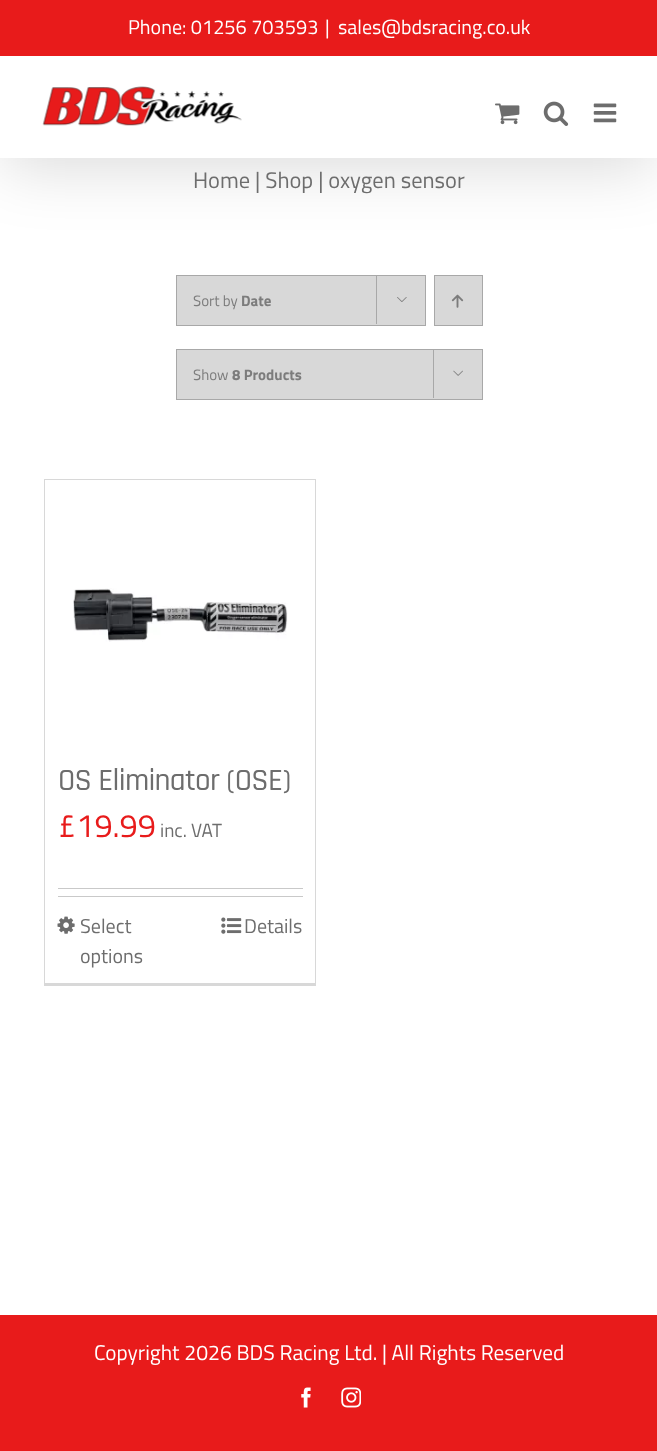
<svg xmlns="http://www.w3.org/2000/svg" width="657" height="1451">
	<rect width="100%" height="100%" fill="#FFFFFF" />
	<rect x="3" y="15" width="652" height="153" fill="#000000" fill-opacity="0.14" filter="blur(31px)" />
	<rect x="0" y="0" width="657" height="56" fill="#E81B1B" />
	<g font-family="Titillium Web" font-size="20" fill="#FFFFFF">
		<text x="128" y="34">Phone: 01256 703593</text>
		<text x="325" y="34">|</text>
		<text x="338" y="34">sales@bdsracing.co.uk</text>
	</g>
	<rect x="0" y="56" width="657" height="102" fill="#FFFFFF" />
	<image x="42" y="86" width="200" height="40" href="assets/img1.png" />
	<image x="495" y="103" width="25" height="22" href="assets/img2.png" />
	<image x="543" y="101" width="26" height="25" href="assets/img3.png" />
	<image x="593" y="103" width="24" height="20" href="assets/img4.png" />
	<text x="193" y="188" font-family="Titillium Web" font-size="22.5" fill="#6D6D6D">Home | Shop | oxygen sensor</text>
	<rect x="176.5" y="275.5" width="249" height="50" fill="#D8D8D8" stroke="#A8A8A8" />
	<text x="193" y="306" font-family="Titillium Web" font-size="15" fill="#7C7C7C">Sort by</text>
	<text x="241" y="306" font-family="Titillium Web" font-size="15" font-weight="700" fill="#7C7C7C">Date</text>
	<rect x="376" y="275" width="1" height="49" fill="#A8A8A8" />
	<image x="397" y="297" width="10" height="5" href="assets/img5.png" />
	<rect x="434.5" y="275.5" width="48" height="50" fill="#D8D8D8" stroke="#A8A8A8" />
	<image x="451" y="294" width="13" height="14" href="assets/img6.png" />
	<rect x="176.5" y="349.5" width="306" height="50" fill="#D8D8D8" stroke="#A8A8A8" />
	<text x="193" y="380" font-family="Titillium Web" font-size="15" fill="#7C7C7C">Show</text>
	<text x="232" y="380" font-family="Titillium Web" font-size="15" font-weight="700" fill="#7C7C7C">8 Products</text>
	<rect x="433" y="349" width="1" height="49" fill="#A8A8A8" />
	<image x="453" y="370" width="10" height="6" href="assets/img7.png" />
	<rect x="44" y="479" width="272" height="1" fill="#D8D8D8" />
	<rect x="315" y="479" width="1" height="506" fill="#D8D8D8" />
	<rect x="44" y="983" width="272" height="3" fill="#D8D8D8" />
	<rect x="44" y="479" width="1" height="506" fill="#D8D8D8" />
	<image x="73" y="588" width="215" height="54" href="assets/img8.png" />
	<text x="58" y="790" font-family="Rajdhani" font-size="31.25" font-weight="500" letter-spacing="-0.75" fill="#6D6D6D">OS Eliminator (OSE)</text>
	<text x="58" y="837" font-family="Titillium Web" font-size="32.5" fill="#E81B1B">£19.99</text>
	<text x="160" y="837" font-family="Titillium Web" font-size="19" fill="#6D6D6D">inc. VAT</text>
	<rect x="58" y="888" width="245" height="1" fill="#C9C9C9" />
	<rect x="58" y="896" width="245" height="1" fill="#C9C9C9" />
	<image x="57" y="916" width="18" height="18" href="assets/img9.png" />
	<g font-family="Titillium Web" font-size="20" fill="#6D6D6D">
		<text x="80" y="933">Select</text>
		<text x="80" y="963">options</text>
	</g>
	<image x="221" y="917" width="21" height="17" href="assets/img10.png" />
	<text x="244" y="933" font-family="Titillium Web" font-size="20" fill="#6D6D6D">Details</text>
	<rect x="0" y="1315" width="657" height="136" fill="#E81B1B" />
	<text x="94" y="1360" font-family="Titillium Web" font-size="21.25" fill="#FFFFFF">Copyright 2026 BDS Racing Ltd. | All Rights Reserved</text>
	<image x="301" y="1387" width="10" height="21" href="assets/img11.png" />
	<image x="341" y="1387" width="20" height="21" href="assets/img12.png" />
</svg>
